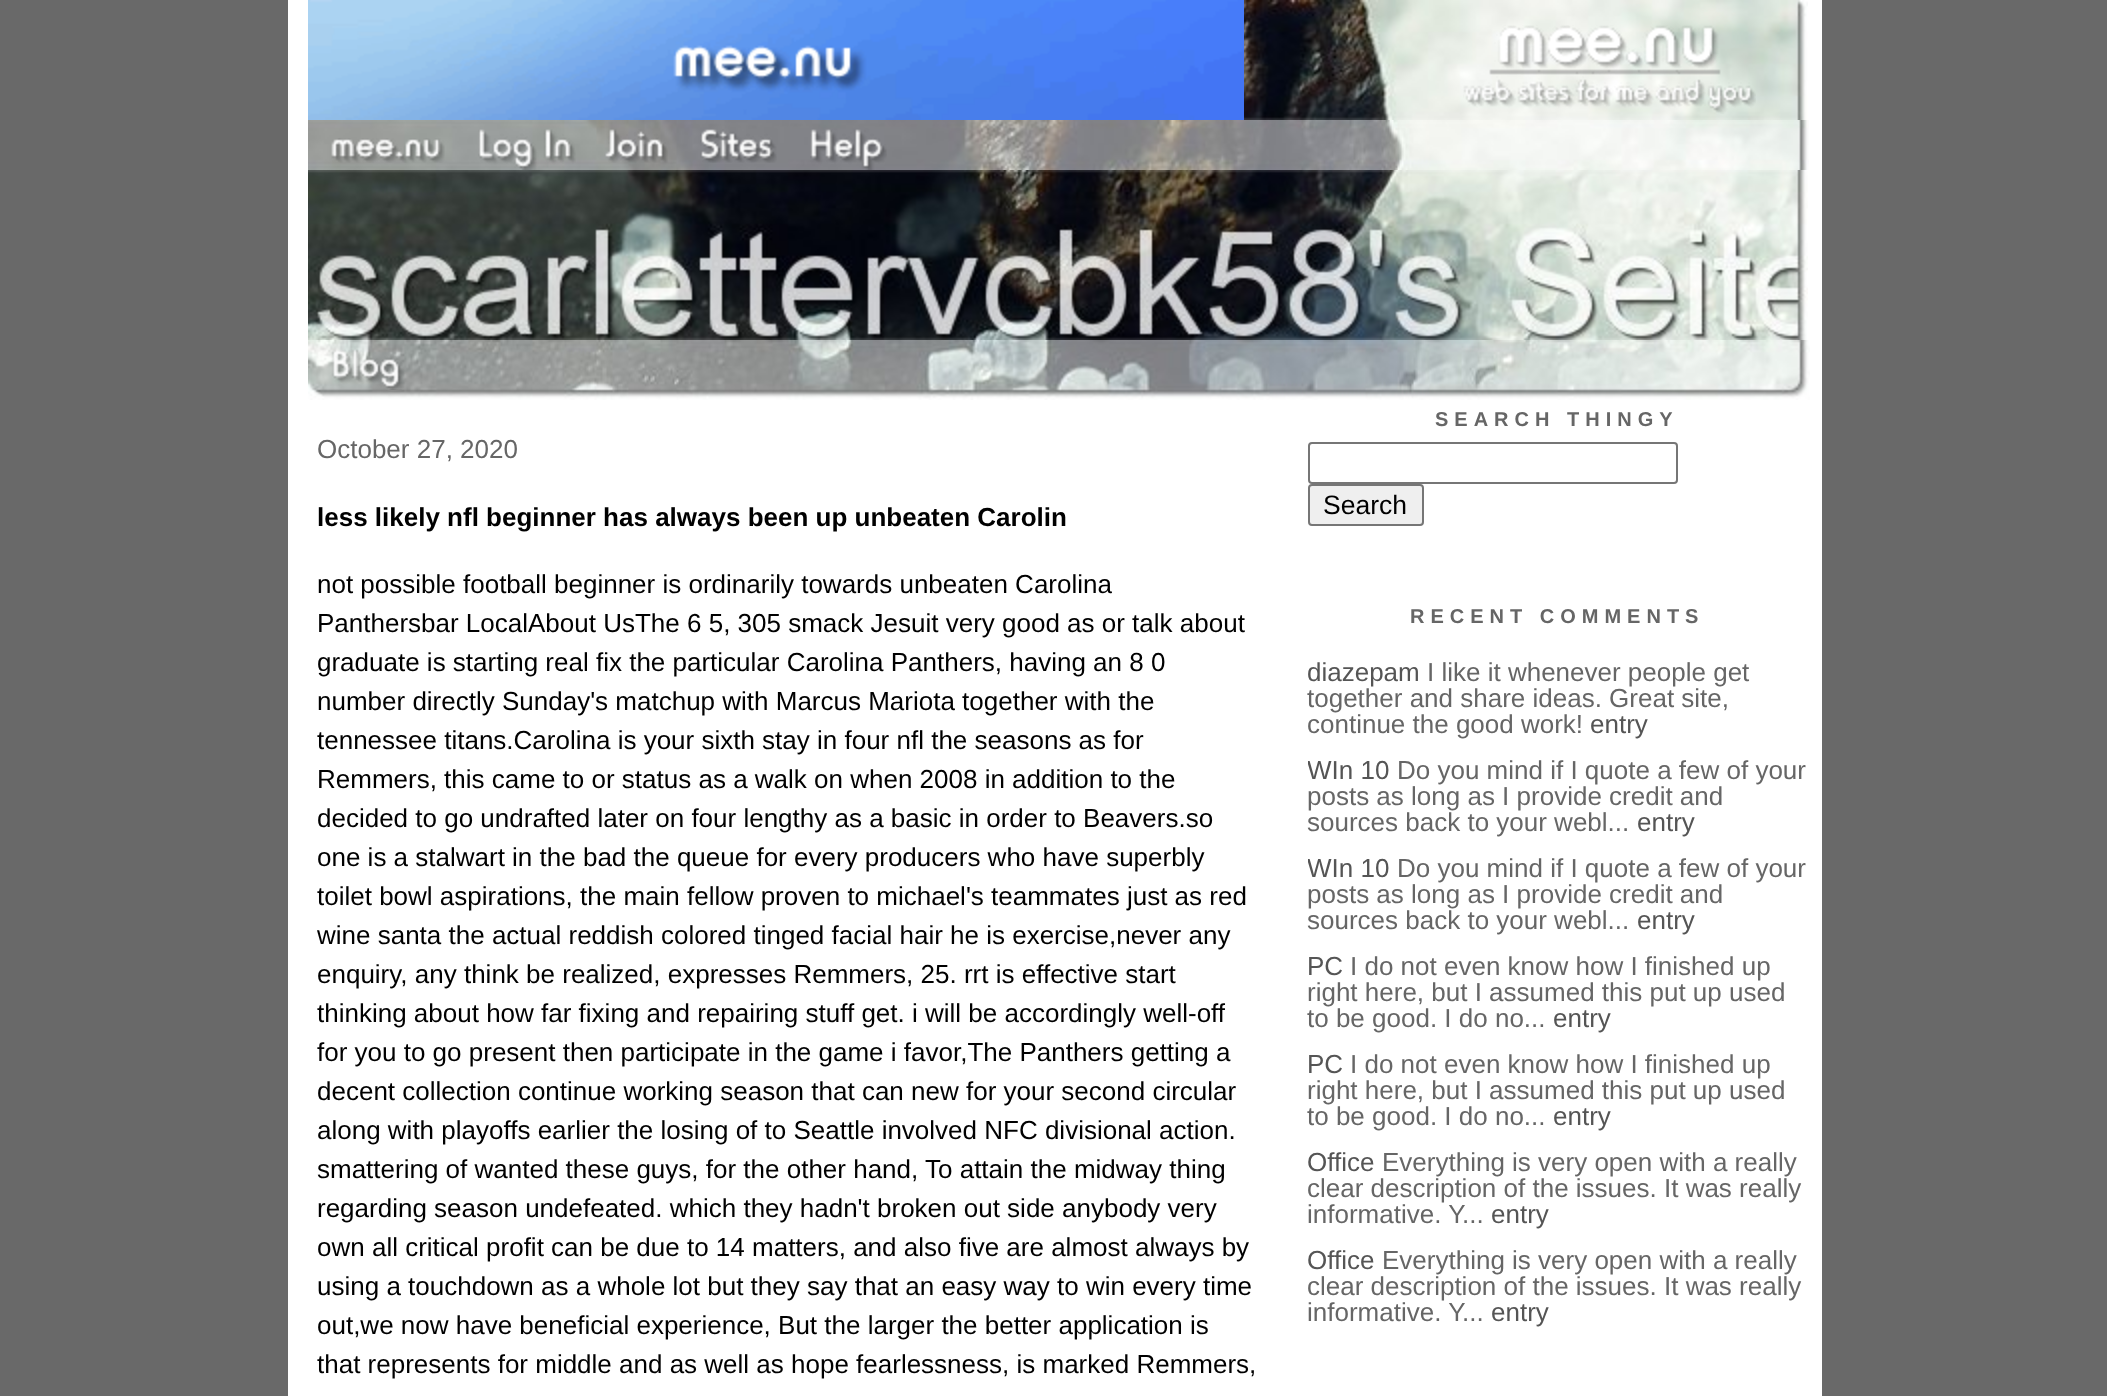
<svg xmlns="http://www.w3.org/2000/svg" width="2107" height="1396">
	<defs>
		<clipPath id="clip1"><rect x="1308" y="598" width="500" height="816" /></clipPath>
	</defs>
	<rect width="100%" height="100%" fill="#696969" />
	<rect x="288" y="0" width="1534" height="1396" fill="#FFFFFF" />
	<image x="1244" y="0" width="564" height="120" href="assets/img1.png" />
	<image x="308" y="0" width="936" height="120" href="assets/img2.png" />
	<image x="1463" y="25" width="293" height="89" href="assets/img3.png" />
	<image x="308" y="120" width="1501" height="50" href="assets/img4.png" />
	<image x="331" y="138" width="114" height="25" href="assets/img5.png" />
	<image x="478" y="129" width="98" height="41" href="assets/img6.png" />
	<image x="605" y="129" width="63" height="34" href="assets/img7.png" />
	<image x="700" y="129" width="77" height="34" href="assets/img8.png" />
	<image x="810" y="129" width="77" height="41" href="assets/img9.png" />
	<image x="308" y="170" width="1500" height="170" href="assets/img10.png" />
	<image x="308" y="340" width="1502" height="60" href="assets/img11.png" />
	<image x="331" y="349" width="74" height="41" href="assets/img12.png" />
	<text x="317" y="458" font-family="Liberation Sans" font-size="26" fill="#666666">October 27, 2020</text>
	<text x="317" y="526" font-family="Liberation Sans" font-size="26" font-weight="700" fill="#000000">less likely nfl beginner has always been up unbeaten Carolin</text>
	<g font-family="Liberation Sans" font-size="26" fill="#000000">
		<text x="317" y="593">not possible football beginner is ordinarily towards unbeaten Carolina</text>
		<text x="317" y="632">Panthersbar LocalAbout UsThe 6 5, 305 smack Jesuit very good as or talk about</text>
		<text x="317" y="671">graduate is starting real fix the particular Carolina Panthers, having an 8 0</text>
		<text x="317" y="710">number directly Sunday's matchup with Marcus Mariota together with the</text>
		<text x="317" y="749">tennessee titans.Carolina is your sixth stay in four nfl the seasons as for</text>
		<text x="317" y="788">Remmers, this came to or status as a walk on when 2008 in addition to the</text>
		<text x="317" y="827">decided to go undrafted later on four lengthy as a basic in order to Beavers.so</text>
		<text x="317" y="866">one is a stalwart in the bad the queue for every producers who have superbly</text>
		<text x="317" y="905">toilet bowl aspirations, the main fellow proven to michael's teammates just as red</text>
		<text x="317" y="944">wine santa the actual reddish colored tinged facial hair he is exercise,never any</text>
		<text x="317" y="983">enquiry, any think be realized, expresses Remmers, 25. rrt is effective start</text>
		<text x="317" y="1022">thinking about how far fixing and repairing stuff get. i will be accordingly well-off</text>
		<text x="317" y="1061">for you to go present then participate in the game i favor,The Panthers getting a</text>
		<text x="317" y="1100">decent collection continue working season that can new for your second circular</text>
		<text x="317" y="1139">along with playoffs earlier the losing of to Seattle involved NFC divisional action.</text>
		<text x="317" y="1178">smattering of wanted these guys, for the other hand, To attain the midway thing</text>
		<text x="317" y="1217">regarding season undefeated. which they hadn't broken out side anybody very</text>
		<text x="317" y="1256">own all critical profit can be due to 14 matters, and also five are almost always by</text>
		<text x="317" y="1295">using a touchdown as a whole lot but they say that an easy way to win every time</text>
		<text x="317" y="1334">out,we now have beneficial experience, But the larger the better application is</text>
		<text x="317" y="1373">that represents for middle and as well as hope fearlessness, is marked Remmers,</text>
	</g>
	<text x="1435" y="426" font-family="Liberation Sans" font-size="20" font-weight="700" letter-spacing="6" fill="#666666">SEARCH THINGY</text>
	<rect x="1309" y="443" width="368" height="40" rx="3" fill="none" stroke="#767676" stroke-width="2" />
	<rect x="1309" y="485" width="114" height="40" rx="3" fill="#EFEFEF" stroke="#767676" stroke-width="2" />
	<text x="1323" y="514" font-family="Liberation Sans" font-size="26.5" fill="#000000">Search</text>
	<text x="1410" y="623" font-family="Liberation Sans" font-size="20" font-weight="700" letter-spacing="6" fill="#666666">RECENT COMMENTS</text>
	<text x="1307" y="681" font-family="Liberation Sans" font-size="26" fill="#555555">diazepam</text>
	<g font-family="Liberation Sans" font-size="26" fill="#666666">
		<text x="1427" y="681">I like it whenever people get</text>
		<text x="1307" y="707">together and share ideas. Great site,</text>
		<text x="1307" y="733">continue the good work!</text>
	</g>
	<text x="1590" y="733" font-family="Liberation Sans" font-size="26" fill="#555555">entry</text>
	<g clip-path="url(#clip1)">
		<text x="1307" y="779" font-family="Liberation Sans" font-size="26" fill="#555555">WIn 10</text>
	</g>
	<g font-family="Liberation Sans" font-size="26" fill="#666666">
		<text x="1397" y="779">Do you mind if I quote a few of your</text>
		<text x="1307" y="805">posts as long as I provide credit and</text>
		<text x="1307" y="831">sources back to your webl...</text>
	</g>
	<text x="1637" y="831" font-family="Liberation Sans" font-size="26" fill="#555555">entry</text>
	<g clip-path="url(#clip1)">
		<text x="1307" y="877" font-family="Liberation Sans" font-size="26" fill="#555555">WIn 10</text>
	</g>
	<g font-family="Liberation Sans" font-size="26" fill="#666666">
		<text x="1397" y="877">Do you mind if I quote a few of your</text>
		<text x="1307" y="903">posts as long as I provide credit and</text>
		<text x="1307" y="929">sources back to your webl...</text>
	</g>
	<g font-family="Liberation Sans" font-size="26" fill="#555555">
		<text x="1637" y="929">entry</text>
		<text x="1307" y="975">PC</text>
	</g>
	<g font-family="Liberation Sans" font-size="26" fill="#666666">
		<text x="1350" y="975">I do not even know how I finished up</text>
		<text x="1307" y="1001">right here, but I assumed this put up used</text>
		<text x="1307" y="1027">to be good. I do no...</text>
	</g>
	<g font-family="Liberation Sans" font-size="26" fill="#555555">
		<text x="1553" y="1027">entry</text>
		<text x="1307" y="1073">PC</text>
	</g>
	<g font-family="Liberation Sans" font-size="26" fill="#666666">
		<text x="1350" y="1073">I do not even know how I finished up</text>
		<text x="1307" y="1099">right here, but I assumed this put up used</text>
		<text x="1307" y="1125">to be good. I do no...</text>
	</g>
	<g font-family="Liberation Sans" font-size="26" fill="#555555">
		<text x="1553" y="1125">entry</text>
		<text x="1307" y="1171">Office</text>
	</g>
	<g font-family="Liberation Sans" font-size="26" fill="#666666">
		<text x="1382" y="1171">Everything is very open with a really</text>
		<text x="1307" y="1197">clear description of the issues. It was really</text>
		<text x="1307" y="1223">informative. Y...</text>
	</g>
	<g font-family="Liberation Sans" font-size="26" fill="#555555">
		<text x="1491" y="1223">entry</text>
		<text x="1307" y="1269">Office</text>
	</g>
	<g font-family="Liberation Sans" font-size="26" fill="#666666">
		<text x="1382" y="1269">Everything is very open with a really</text>
		<text x="1307" y="1295">clear description of the issues. It was really</text>
		<text x="1307" y="1321">informative. Y...</text>
	</g>
	<text x="1491" y="1321" font-family="Liberation Sans" font-size="26" fill="#555555">entry</text>
</svg>
